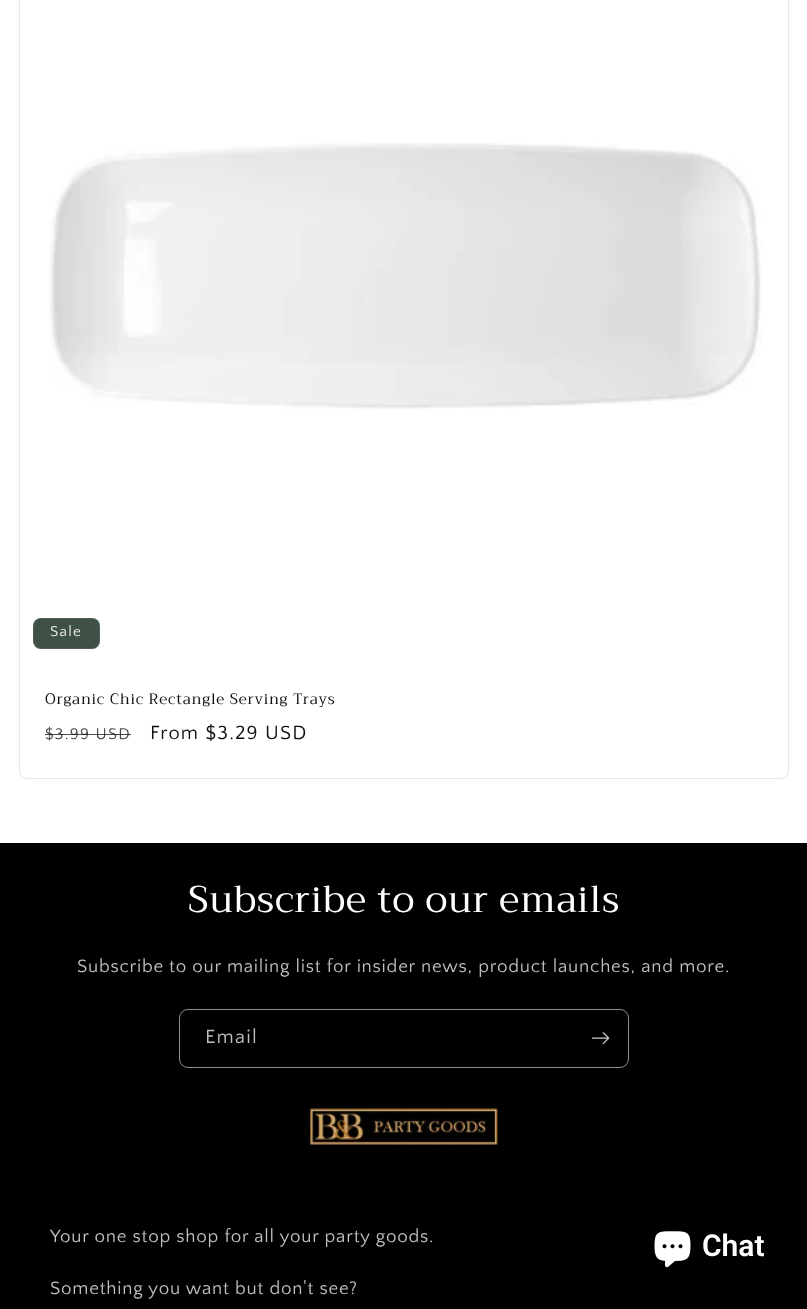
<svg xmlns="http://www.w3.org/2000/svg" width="807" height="1309">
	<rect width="100%" height="100%" fill="#FFFFFF" />
	<rect x="19.5" y="-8.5" width="769" height="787" rx="7.5" fill="none" stroke="#E7E7E7" />
	<image x="49" y="143" width="713" height="267" href="assets/img1.png" />
	<rect x="33" y="618" width="67" height="31" rx="8" fill="#3F5147" />
	<rect x="33.5" y="618.5" width="66" height="30" rx="7.5" fill="none" stroke="#EFECEC" stroke-opacity="0.1" />
	<text x="50" y="636" font-family="Quattrocento Sans" font-size="15" letter-spacing="1.25" fill="#EFECEC">Sale</text>
	<text x="45" y="704" font-family="Trirong" font-size="15" letter-spacing="0.75" fill="#120D0D">Organic Chic Rectangle Serving Trays</text>
	<text x="45" y="739" font-family="Quattrocento Sans" font-size="16.25" letter-spacing="1.25" fill="#4D4A4A">$3.99 USD</text>
	<rect x="45" y="734" width="86" height="1" fill="#120D0D" fill-opacity="0.75" />
	<text x="150" y="739" font-family="Quattrocento Sans" font-size="20" letter-spacing="1.25" fill="#120D0D">From $3.29 USD</text>
	<rect x="0" y="843" width="807" height="466" fill="#000000" />
	<text x="188" y="912" font-family="Trirong" font-size="37.5" letter-spacing="0.75" fill="#FFFFFF">Subscribe to our emails</text>
	<text x="77" y="972" font-family="Quattrocento Sans" font-size="18.75" letter-spacing="0.75" fill="#BFBFBF">Subscribe to our mailing list for insider news, product launches, and more.</text>
	<rect x="179.5" y="1009.5" width="449" height="58" rx="8.5" fill="none" stroke="#8C8C8C" />
	<text x="205" y="1043" font-family="Quattrocento Sans" font-size="20" letter-spacing="1.25" fill="#BFBFBF">Email</text>
	<image x="592" y="1032" width="18" height="13" href="assets/img2.png" />
	<image x="310" y="1108" width="188" height="37" href="assets/img3.png" />
	<g font-family="Quattrocento Sans" font-size="18.75" letter-spacing="0.75" fill="#BFBFBF">
		<text x="50" y="1242">Your one stop shop for all your party goods.</text>
		<text x="50" y="1294">Something you want but don't see?</text>
	</g>
	<image x="654" y="1231" width="37" height="37" href="assets/img4.png" />
	<text x="702" y="1256" font-family="Roboto" font-size="30" font-weight="600" fill="#FFFFFF">Chat</text>
</svg>
